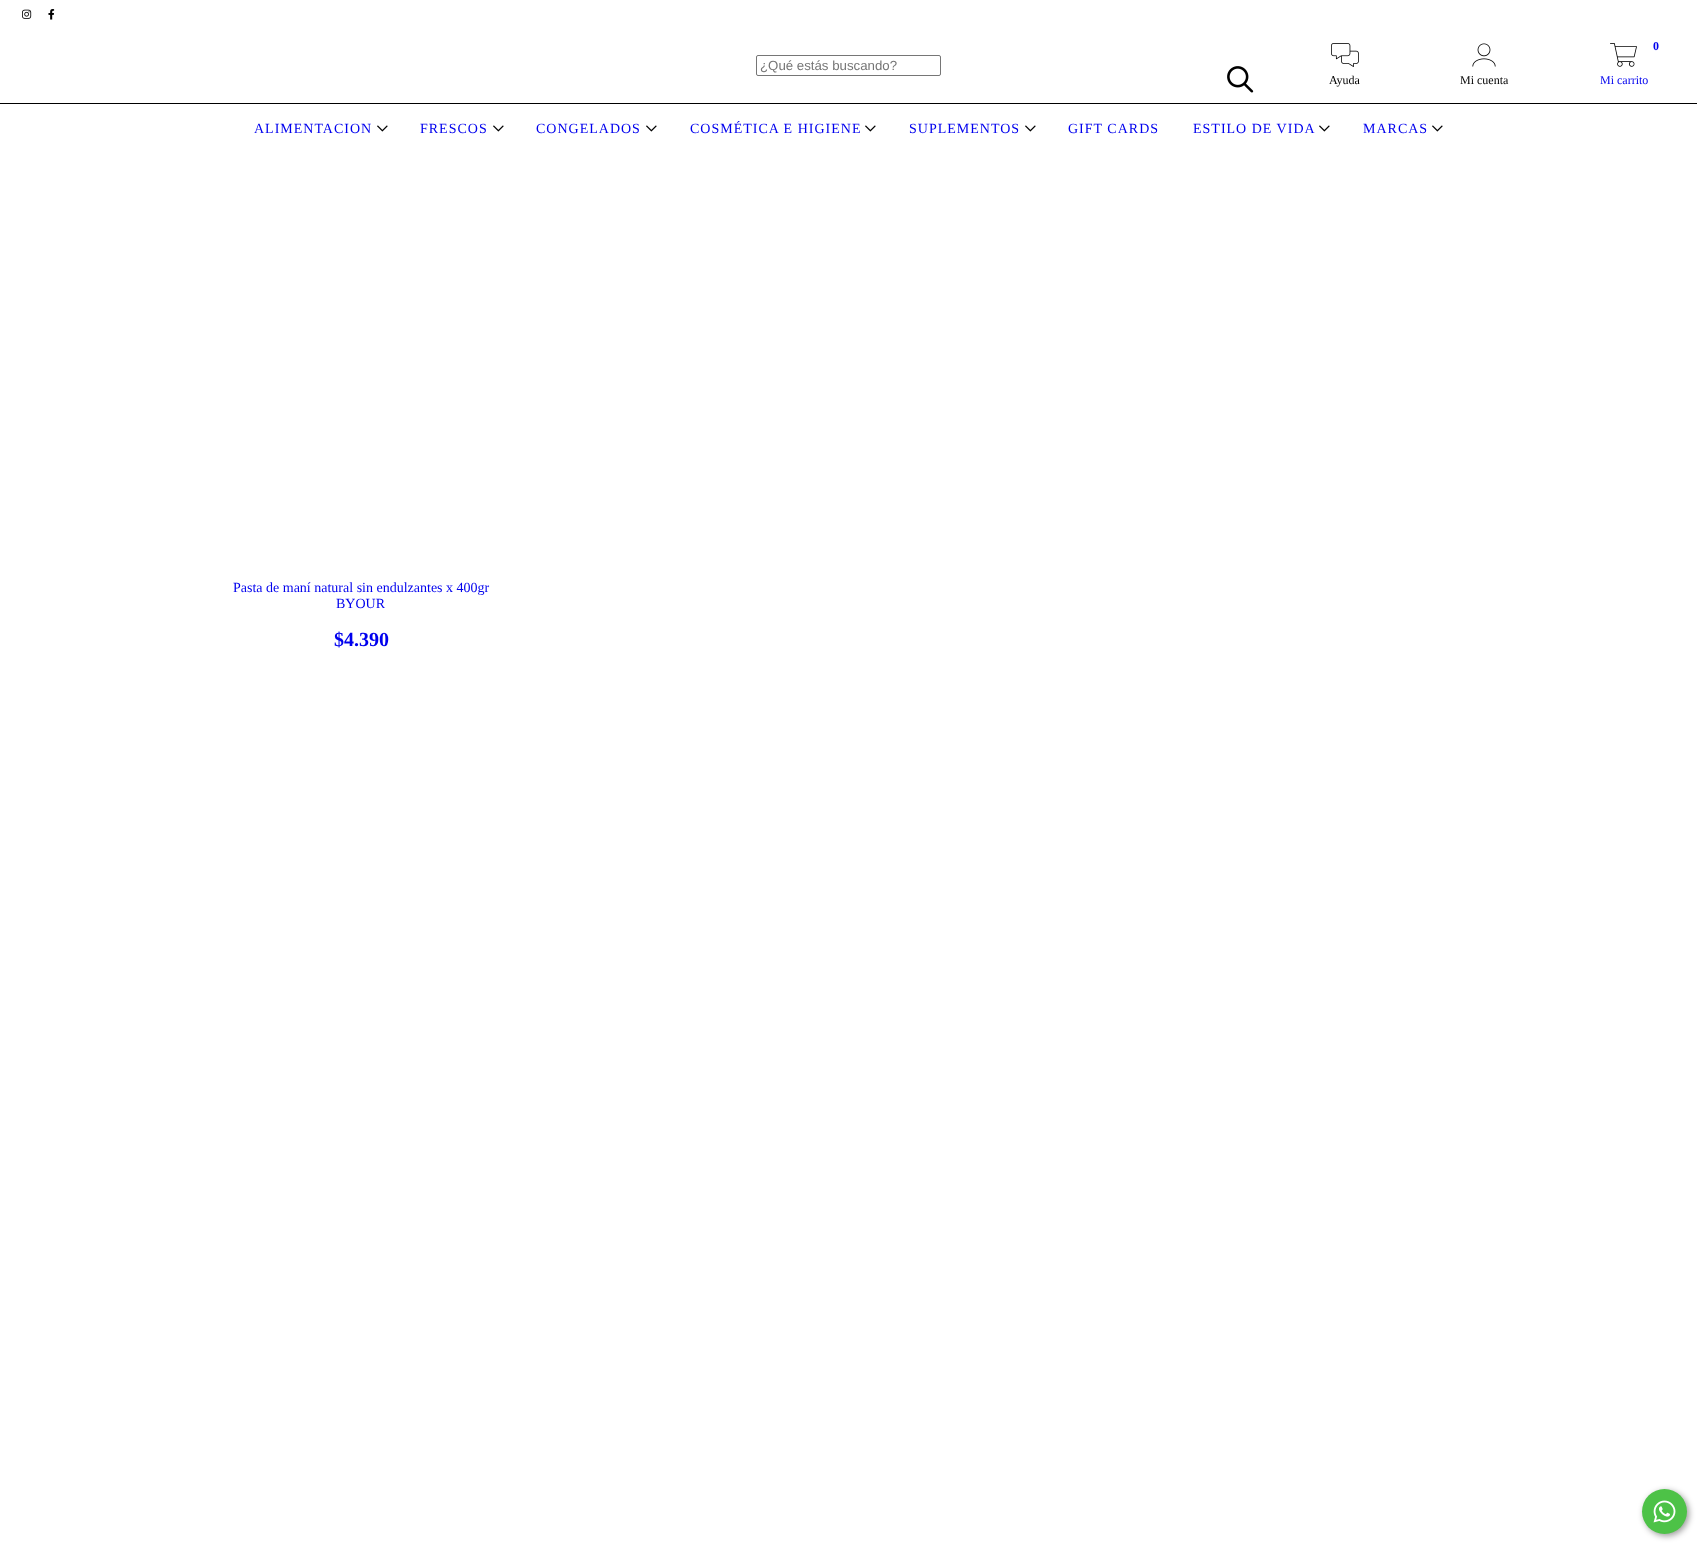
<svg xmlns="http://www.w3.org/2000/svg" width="1697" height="1544">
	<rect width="100%" height="100%" fill="#FFFFFF" />
	<image x="22" y="9" width="10" height="10" href="assets/img1.png" />
	<image x="48" y="9" width="7" height="11" href="assets/img2.png" />
	<rect x="756.5" y="55.5" width="184" height="20" rx="1.5" fill="none" stroke="#767676" />
	<text x="760" y="70" font-family="Liberation Sans" font-size="13.25" fill="#757575">¿Qué estás buscando?</text>
	<image x="1227" y="66" width="27" height="27" href="assets/img3.png" />
	<image x="1331" y="43" width="28" height="24" href="assets/img4.png" />
	<text x="1329" y="84" font-family="Liberation Serif" font-size="12" fill="#000000">Ayuda</text>
	<image x="1472" y="43" width="24" height="24" href="assets/img5.png" />
	<text x="1460" y="84" font-family="Liberation Serif" font-size="12" fill="#000000">Mi cuenta</text>
	<image x="1610" y="43" width="27" height="24" href="assets/img6.png" />
	<text x="1653" y="50" font-family="Liberation Serif" font-size="12" font-weight="700" fill="#0000EE">0</text>
	<text x="1600" y="84" font-family="Liberation Serif" font-size="12" fill="#0000EE">Mi carrito</text>
	<rect x="0" y="103" width="1697" height="1" fill="#000000" />
	<text x="254" y="133" font-family="Liberation Serif" font-size="14" letter-spacing="1" fill="#0000EE">ALIMENTACION</text>
	<image x="377" y="125" width="11" height="7" href="assets/img7.png" />
	<text x="420" y="133" font-family="Liberation Serif" font-size="14" letter-spacing="1" fill="#0000EE">FRESCOS</text>
	<image x="493" y="125" width="11" height="7" href="assets/img7.png" />
	<text x="536" y="133" font-family="Liberation Serif" font-size="14" letter-spacing="1" fill="#0000EE">CONGELADOS</text>
	<image x="646" y="125" width="11" height="7" href="assets/img7.png" />
	<text x="690" y="133" font-family="Liberation Serif" font-size="14" letter-spacing="1" fill="#0000EE">COSMÉTICA E HIGIENE</text>
	<image x="865" y="125" width="11" height="7" href="assets/img7.png" />
	<text x="909" y="133" font-family="Liberation Serif" font-size="14" letter-spacing="1" fill="#0000EE">SUPLEMENTOS</text>
	<image x="1025" y="125" width="11" height="7" href="assets/img7.png" />
	<g font-family="Liberation Serif" font-size="14" letter-spacing="1" fill="#0000EE">
		<text x="1068" y="133">GIFT CARDS</text>
		<text x="1193" y="133">ESTILO DE VIDA</text>
	</g>
	<image x="1319" y="125" width="11" height="7" href="assets/img7.png" />
	<text x="1363" y="133" font-family="Liberation Serif" font-size="14" letter-spacing="1" fill="#0000EE">MARCAS</text>
	<image x="1432" y="125" width="11" height="7" href="assets/img7.png" />
	<g font-family="Liberation Serif" font-size="14" fill="#0000EE">
		<text x="233" y="592">Pasta de maní natural sin endulzantes x 400gr</text>
		<text x="336" y="608">BYOUR</text>
	</g>
	<text x="334" y="646" font-family="Liberation Serif" font-size="20" font-weight="700" fill="#0000EE">$4.390</text>
	<rect x="1644" y="1491" width="45" height="45" rx="22.5" fill="#000000" fill-opacity="0.4" filter="blur(3px)" />
	<circle cx="1664.5" cy="1511.5" r="22.5" fill="#4DC247" />
	<image x="1653" y="1500" width="23" height="23" href="assets/img8.png" />
</svg>
